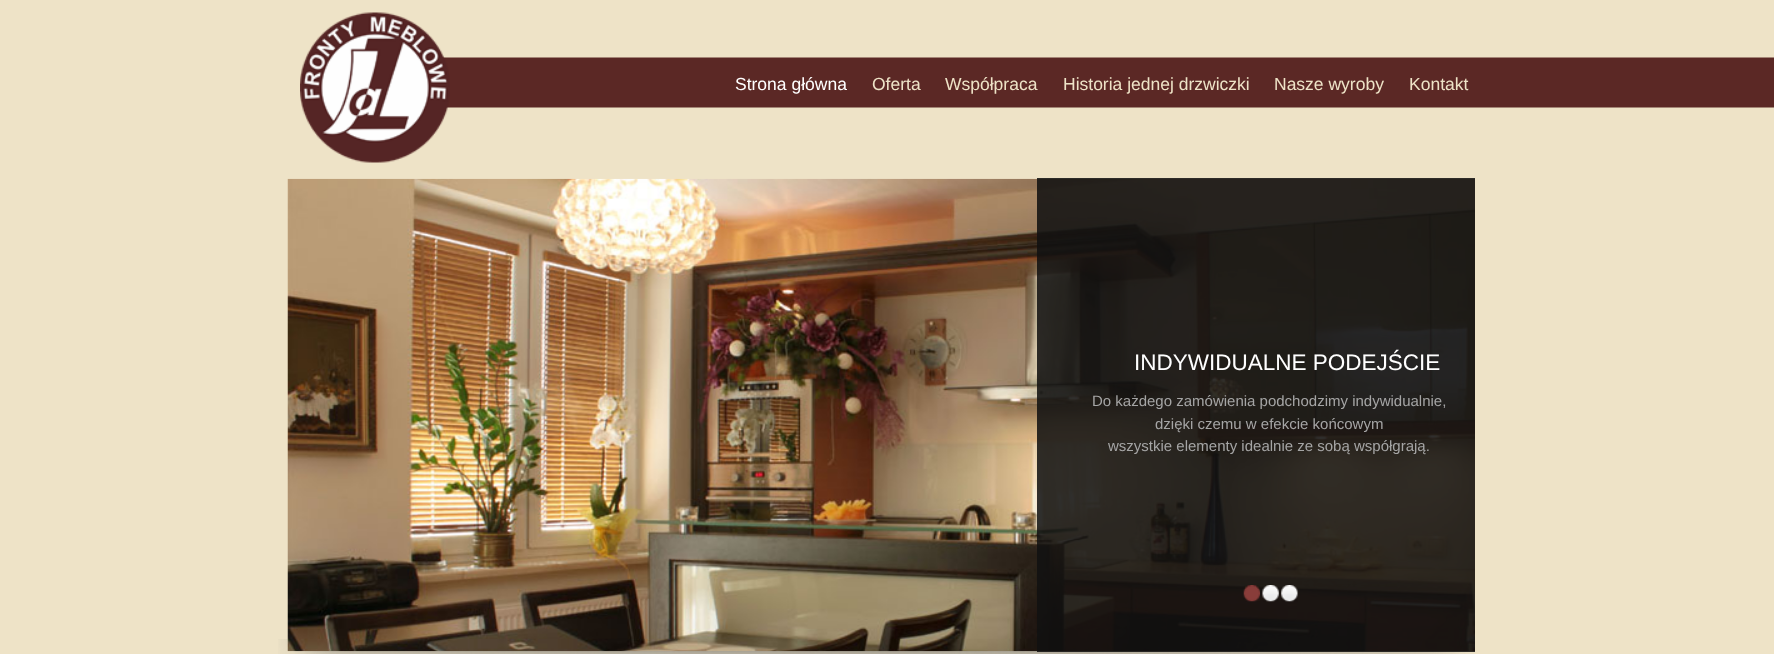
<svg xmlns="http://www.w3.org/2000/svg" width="1774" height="654">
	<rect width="100%" height="100%" fill="#EEE3C7" />
	<image x="442" y="57" width="1332" height="51" href="assets/img1.png" />
	<image x="300" y="12" width="150" height="151" href="assets/img2.png" />
	<text x="735" y="90" font-family="Liberation Sans" font-size="17.5" fill="#FFFFFF">Strona główna</text>
	<g font-family="Liberation Sans" font-size="17.5" fill="#EEE3C7">
		<text x="872" y="90">Oferta</text>
		<text x="945" y="90">Współpraca</text>
		<text x="1063" y="90">Historia jednej drzwiczki</text>
		<text x="1274" y="90">Nasze wyroby</text>
		<text x="1409" y="90">Kontakt</text>
	</g>
	<image x="278" y="639" width="1197" height="15" href="assets/img7.png" />
	<image x="287" y="178" width="1188" height="474" href="assets/img3.png" />
	<rect x="1037" y="178" width="438" height="474" fill="#111111" fill-opacity="0.87" />
	<text x="1134" y="370" font-family="Liberation Sans" font-size="22.5" fill="#FFFFFF">INDYWIDUALNE PODEJŚCIE</text>
	<g font-family="Liberation Sans" font-size="15" fill="#A5A5A5">
		<text x="1092" y="406">Do każdego zamówienia podchodzimy indywidualnie,</text>
		<text x="1155" y="429">dzięki czemu w efekcie końcowym</text>
		<text x="1108" y="451">wszystkie elementy idealnie ze sobą współgrają.</text>
	</g>
	<image x="1243" y="585" width="17" height="17" href="assets/img4.png" />
	<image x="1262" y="585" width="17" height="17" href="assets/img5.png" />
	<image x="1281" y="585" width="17" height="17" href="assets/img6.png" />
</svg>
